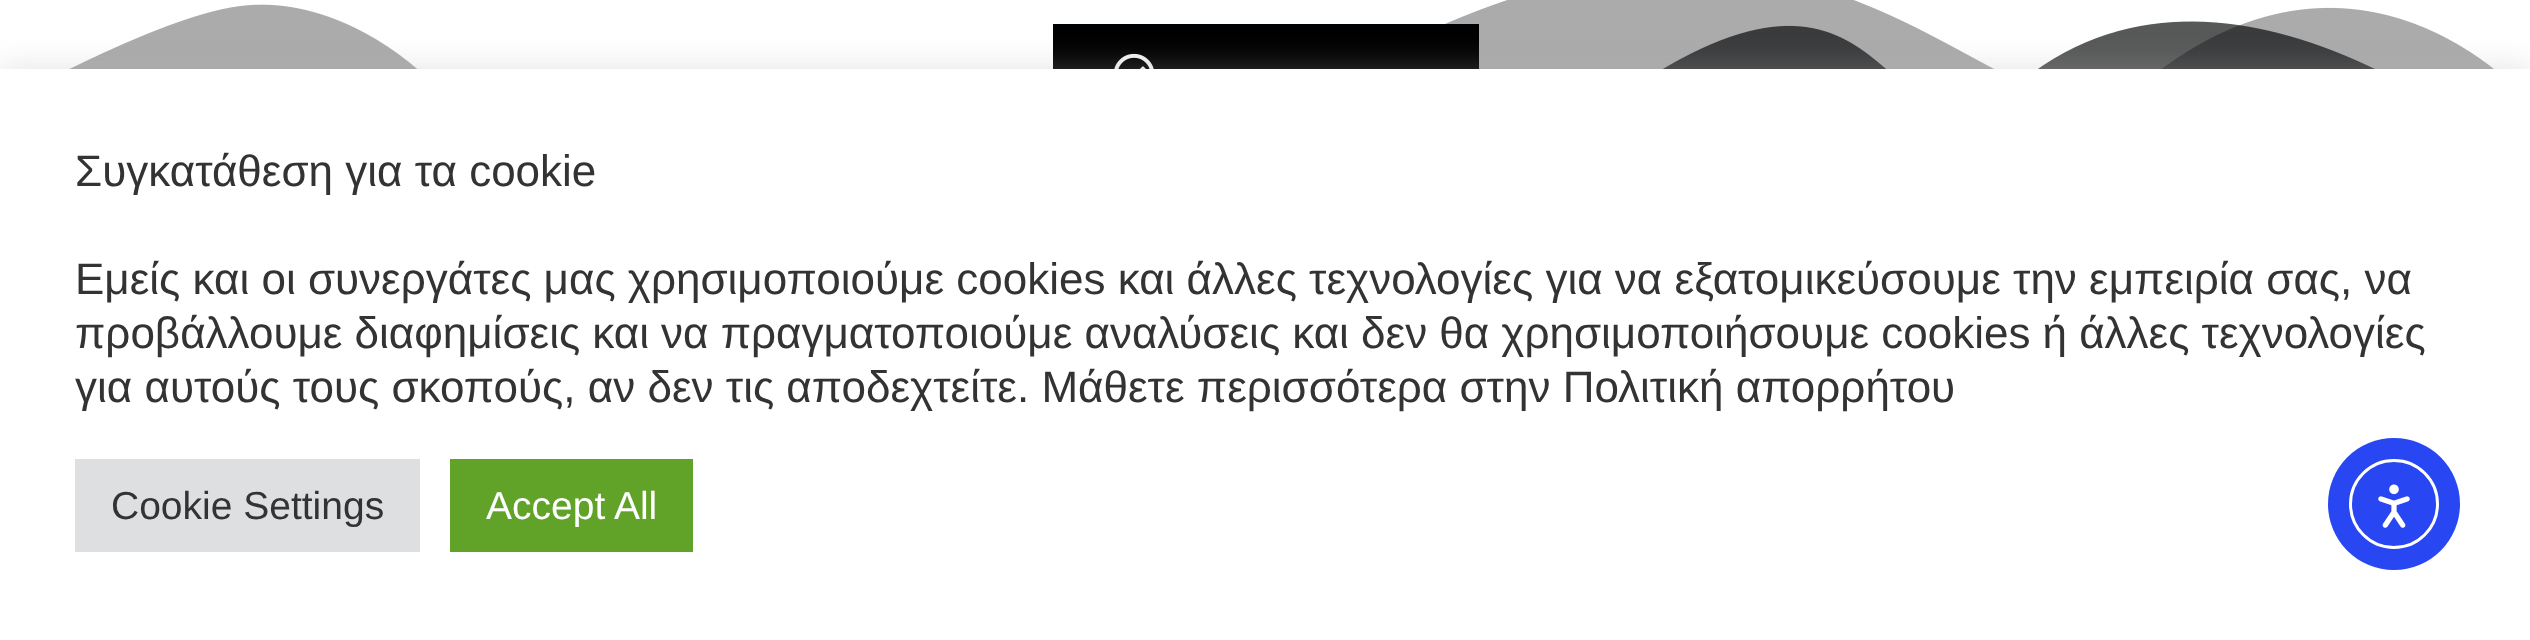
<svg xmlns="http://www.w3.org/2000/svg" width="2530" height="640">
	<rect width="100%" height="100%" fill="#FFFFFF" />
	<image x="69" y="0" width="2425" height="69" href="assets/img1.png" />
	<rect x="1053" y="24" width="426" height="45" fill="#000102" />
	<image x="1114" y="53" width="40" height="16" href="assets/img2.png" />
	<rect x="0" y="66" width="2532" height="573" fill="#ACABAB" fill-opacity="0.3" filter="blur(15px)" />
	<rect x="0" y="69" width="2530" height="571" fill="#FFFFFF" />
	<g font-family="Liberation Sans" font-size="44" fill="#333333">
		<text x="75" y="186">Συγκατάθεση για τα cookie</text>
		<text x="75" y="294">Εμείς και οι συνεργάτες μας χρησιμοποιούμε cookies και άλλες τεχνολογίες για να εξατομικεύσουμε την εμπειρία σας, να</text>
		<text x="75" y="348" word-spacing="-0.1">προβάλλουμε διαφημίσεις και να πραγματοποιούμε αναλύσεις και δεν θα χρησιμοποιήσουμε cookies ή άλλες τεχνολογίες</text>
		<text x="75" y="402">για αυτούς τους σκοπούς, αν δεν τις αποδεχτείτε. Μάθετε περισσότερα στην Πολιτική απορρήτου</text>
	</g>
	<rect x="75" y="459" width="345" height="93" fill="#DEDFE0" />
	<text x="111" y="519" font-family="Liberation Sans" font-size="39" fill="#333333">Cookie Settings</text>
	<rect x="450" y="459" width="243" height="93" fill="#61A229" />
	<text x="486" y="519" font-family="Liberation Sans" font-size="39" fill="#FFFFFF">Accept All</text>
	<circle cx="2394" cy="504" r="66" fill="#2847F3" />
	<circle cx="2394" cy="504" r="43.5" fill="none" stroke="#FFFFFF" stroke-width="3" />
	<image x="2378" y="484" width="32" height="44" href="assets/img3.png" />
</svg>
